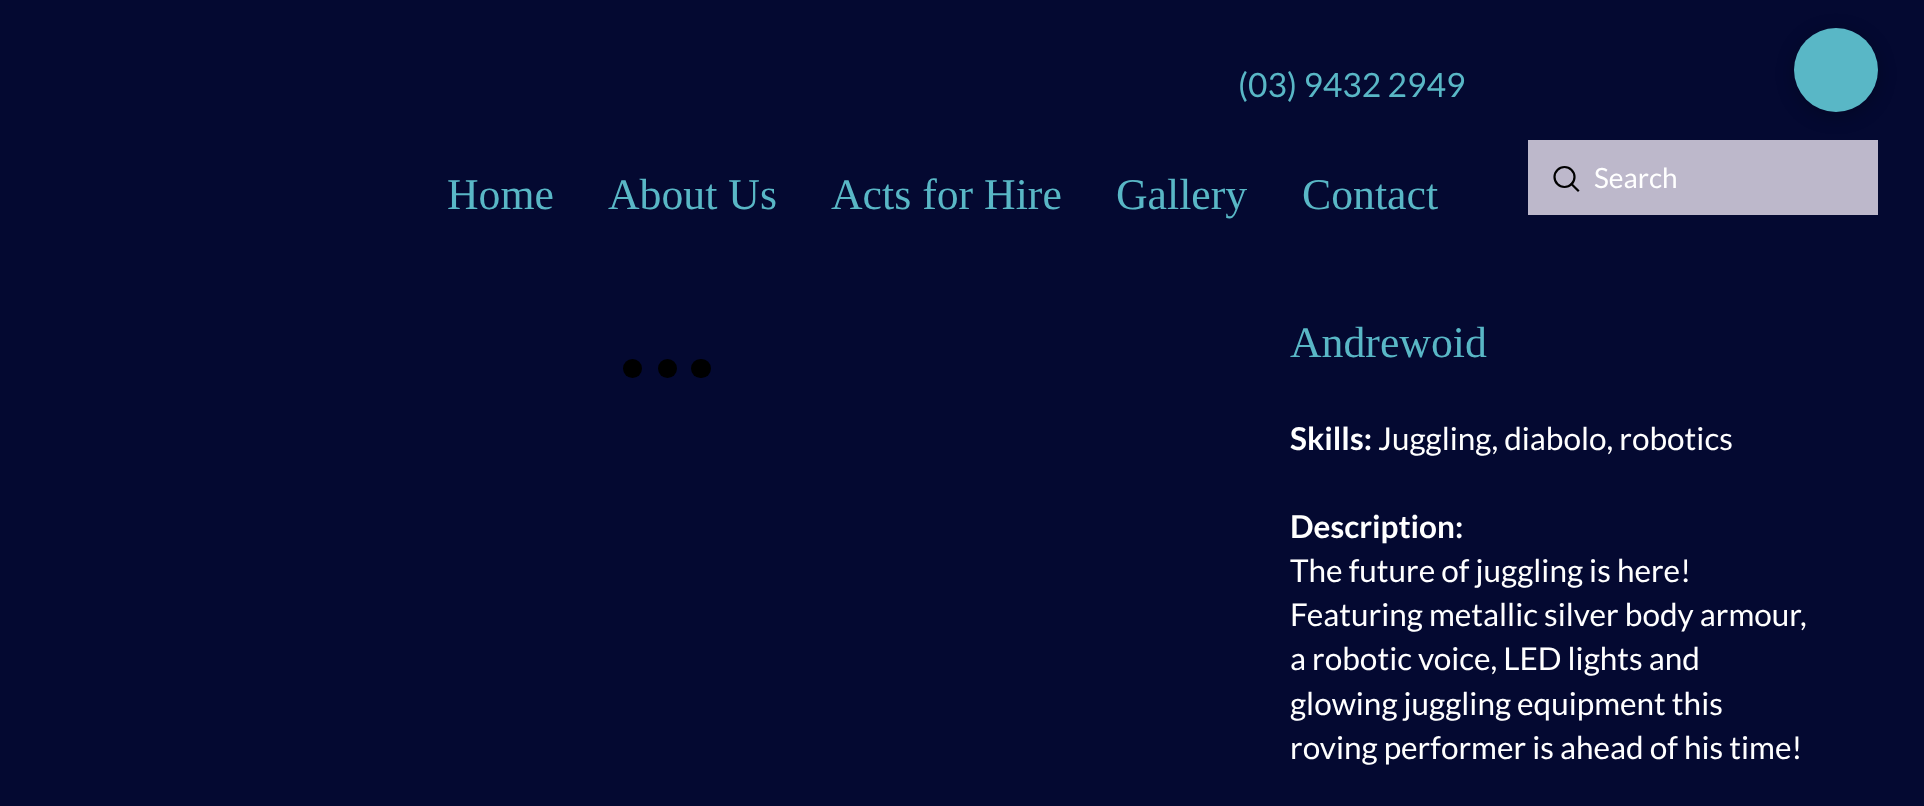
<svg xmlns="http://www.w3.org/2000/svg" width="1924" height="806">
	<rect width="100%" height="100%" fill="#040931" />
	<text x="1238" y="97" font-family="Lato" font-size="33.5" fill="#59B7C6">(03) 9432 2949</text>
	<g font-family="Liberation Serif" font-size="43.75" fill="#59B7C6">
		<text x="447" y="209">Home</text>
		<text x="608" y="209">About Us</text>
		<text x="831" y="209">Acts for Hire</text>
		<text x="1116" y="209">Gallery</text>
		<text x="1302" y="209">Contact</text>
	</g>
	<rect x="1528" y="140" width="350" height="75" fill="#BDB8CB" />
	<rect x="1794" y="32" width="84" height="84" rx="42" fill="#000000" fill-opacity="0.25" filter="blur(9px)" />
	<circle cx="1836" cy="70" r="42" fill="#59B7C6" />
	<circle cx="1564.5" cy="177" r="10" fill="none" stroke="#000000" stroke-width="2.2" />
	<path d="M1578 190.5L1571.5 184" fill="none" stroke="#000000" stroke-width="2.2" stroke-linecap="square" />
	<text x="1594" y="188" font-family="Lato" font-size="28" fill="#FFFFFF">Search</text>
	<circle cx="632.5" cy="368.5" r="9.5" fill="#000000" />
	<circle cx="667.5" cy="368.5" r="9.5" fill="#000000" />
	<rect x="691" y="359" width="20" height="19" rx="9.5" fill="#000000" />
	<text x="1290" y="357" font-family="Liberation Serif" font-size="43.75" fill="#59B7C6">Andrewoid</text>
	<text x="1290" y="450" font-family="Lato" font-size="31.5" font-weight="700" fill="#FFFFFF">Skills:</text>
	<text x="1378" y="450" font-family="Lato" font-size="31.5" fill="#FFFFFF">Juggling, diabolo, robotics</text>
	<text x="1290" y="538" font-family="Lato" font-size="31.5" font-weight="700" fill="#FFFFFF">Description:</text>
	<g font-family="Lato" font-size="31.5" fill="#FFFFFF">
		<text x="1290" y="582">The future of juggling is here!</text>
		<text x="1290" y="626">Featuring metallic silver body armour,</text>
		<text x="1290" y="670">a robotic voice, LED lights and</text>
		<text x="1290" y="715">glowing juggling equipment this</text>
		<text x="1290" y="759">roving performer is ahead of his time!</text>
	</g>
</svg>
